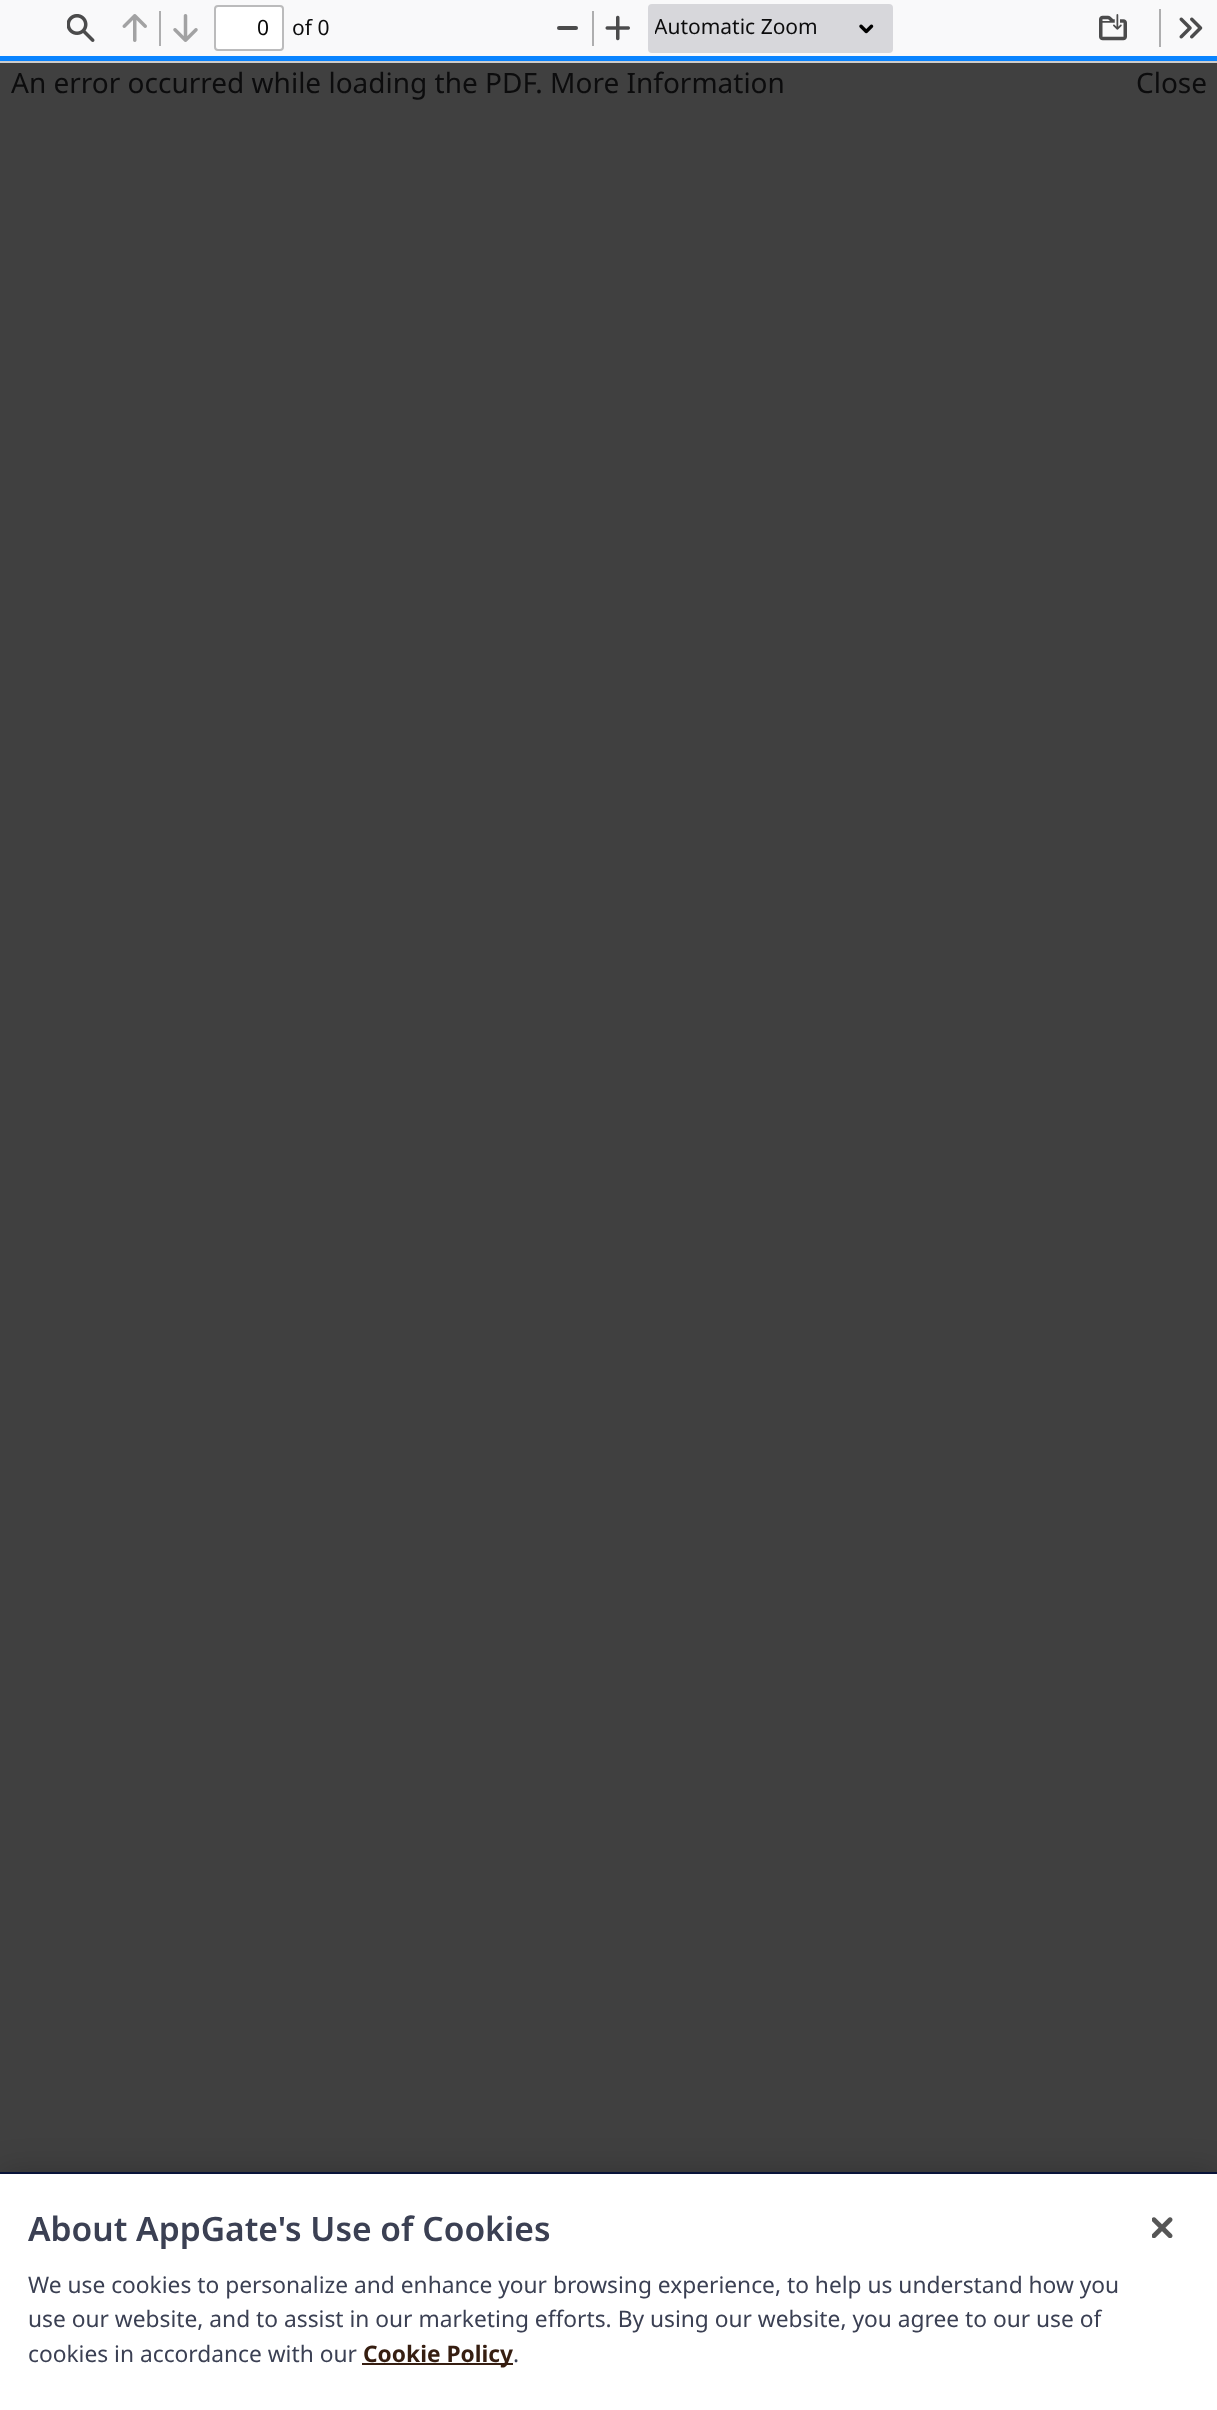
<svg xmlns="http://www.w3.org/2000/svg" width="1217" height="2410">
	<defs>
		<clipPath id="clip1"><rect x="655" y="7" width="276" height="42" /></clipPath>
	</defs>
	<rect width="100%" height="100%" fill="#404040" />
	<rect x="0" y="0" width="1217" height="56" fill="#F9F9FA" />
	<image x="67" y="14" width="28" height="28" href="assets/img1.png" />
	<image x="122" y="14" width="25" height="28" href="assets/img2.png" />
	<rect x="159" y="11" width="2" height="35" fill="#AEAEAF" />
	<image x="173" y="14" width="25" height="28" href="assets/img3.png" />
	<rect x="215" y="6" width="68" height="44" rx="3" fill="#FFFFFF" stroke="#BBBBBC" stroke-width="2" />
	<text x="257" y="35" font-family="Noto Sans" font-size="21" fill="#060606">0</text>
	<text x="292" y="35" font-family="Noto Sans" font-size="21" fill="#0C0C0D">of 0</text>
	<rect x="557" y="26" width="21" height="4" rx="2" fill="#4B4B4B" />
	<rect x="592" y="11" width="2" height="35" fill="#AEAEAF" />
	<image x="605" y="15" width="25" height="26" href="assets/img4.png" />
	<rect x="648" y="4" width="245" height="49" rx="4" fill="#D7D7DB" />
	<g clip-path="url(#clip1)">
		<text x="654" y="34" font-family="Noto Sans" font-size="21" fill="#0C0C0D">Automatic Zoom</text>
	</g>
	<image x="859" y="24" width="15" height="10" href="assets/img5.png" />
	<image x="1099" y="14" width="28" height="27" href="assets/img6.png" />
	<rect x="1159" y="9" width="2" height="38" fill="#AEAEAF" />
	<image x="1179" y="17" width="24" height="22" href="assets/img7.png" />
	<rect x="0" y="61" width="1217" height="2" fill="#CCCCCC" />
	<rect x="0" y="56" width="1217" height="5" fill="#0A84FF" />
	<g font-family="Noto Sans" font-size="28" fill="#0C0C0D">
		<text x="11" y="93">An error occurred while loading the PDF. More Information</text>
		<text x="1136" y="93">Close</text>
	</g>
	<rect x="0" y="2172" width="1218" height="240" fill="#000000" fill-opacity="0.2" filter="blur(16px)" />
	<rect x="0" y="2174" width="1217" height="236" fill="#FFFFFF" />
	<rect x="0" y="2172" width="1217" height="2" fill="#081339" />
	<text x="28" y="2241" font-family="Noto Sans" font-size="33.6" font-weight="600" fill="#3B4053">About AppGate's Use of Cookies</text>
	<g font-family="Noto Sans" font-size="22.75" fill="#3B4053">
		<text x="28" y="2293">We use cookies to personalize and enhance your browsing experience, to help us understand how you</text>
		<text x="28" y="2327">use our website, and to assist in our marketing efforts. By using our website, you agree to our use of</text>
		<text x="28" y="2362">cookies in accordance with our</text>
	</g>
	<rect x="362" y="2363" width="151" height="2" fill="#361E11" />
	<text x="363" y="2362" font-family="Noto Sans" font-size="22.75" font-weight="700" fill="#361E11">Cookie Policy</text>
	<text x="513" y="2362" font-family="Noto Sans" font-size="22.75" fill="#3B4053">.</text>
	<image x="1152" y="2217" width="21" height="21" href="assets/img8.png" />
</svg>
